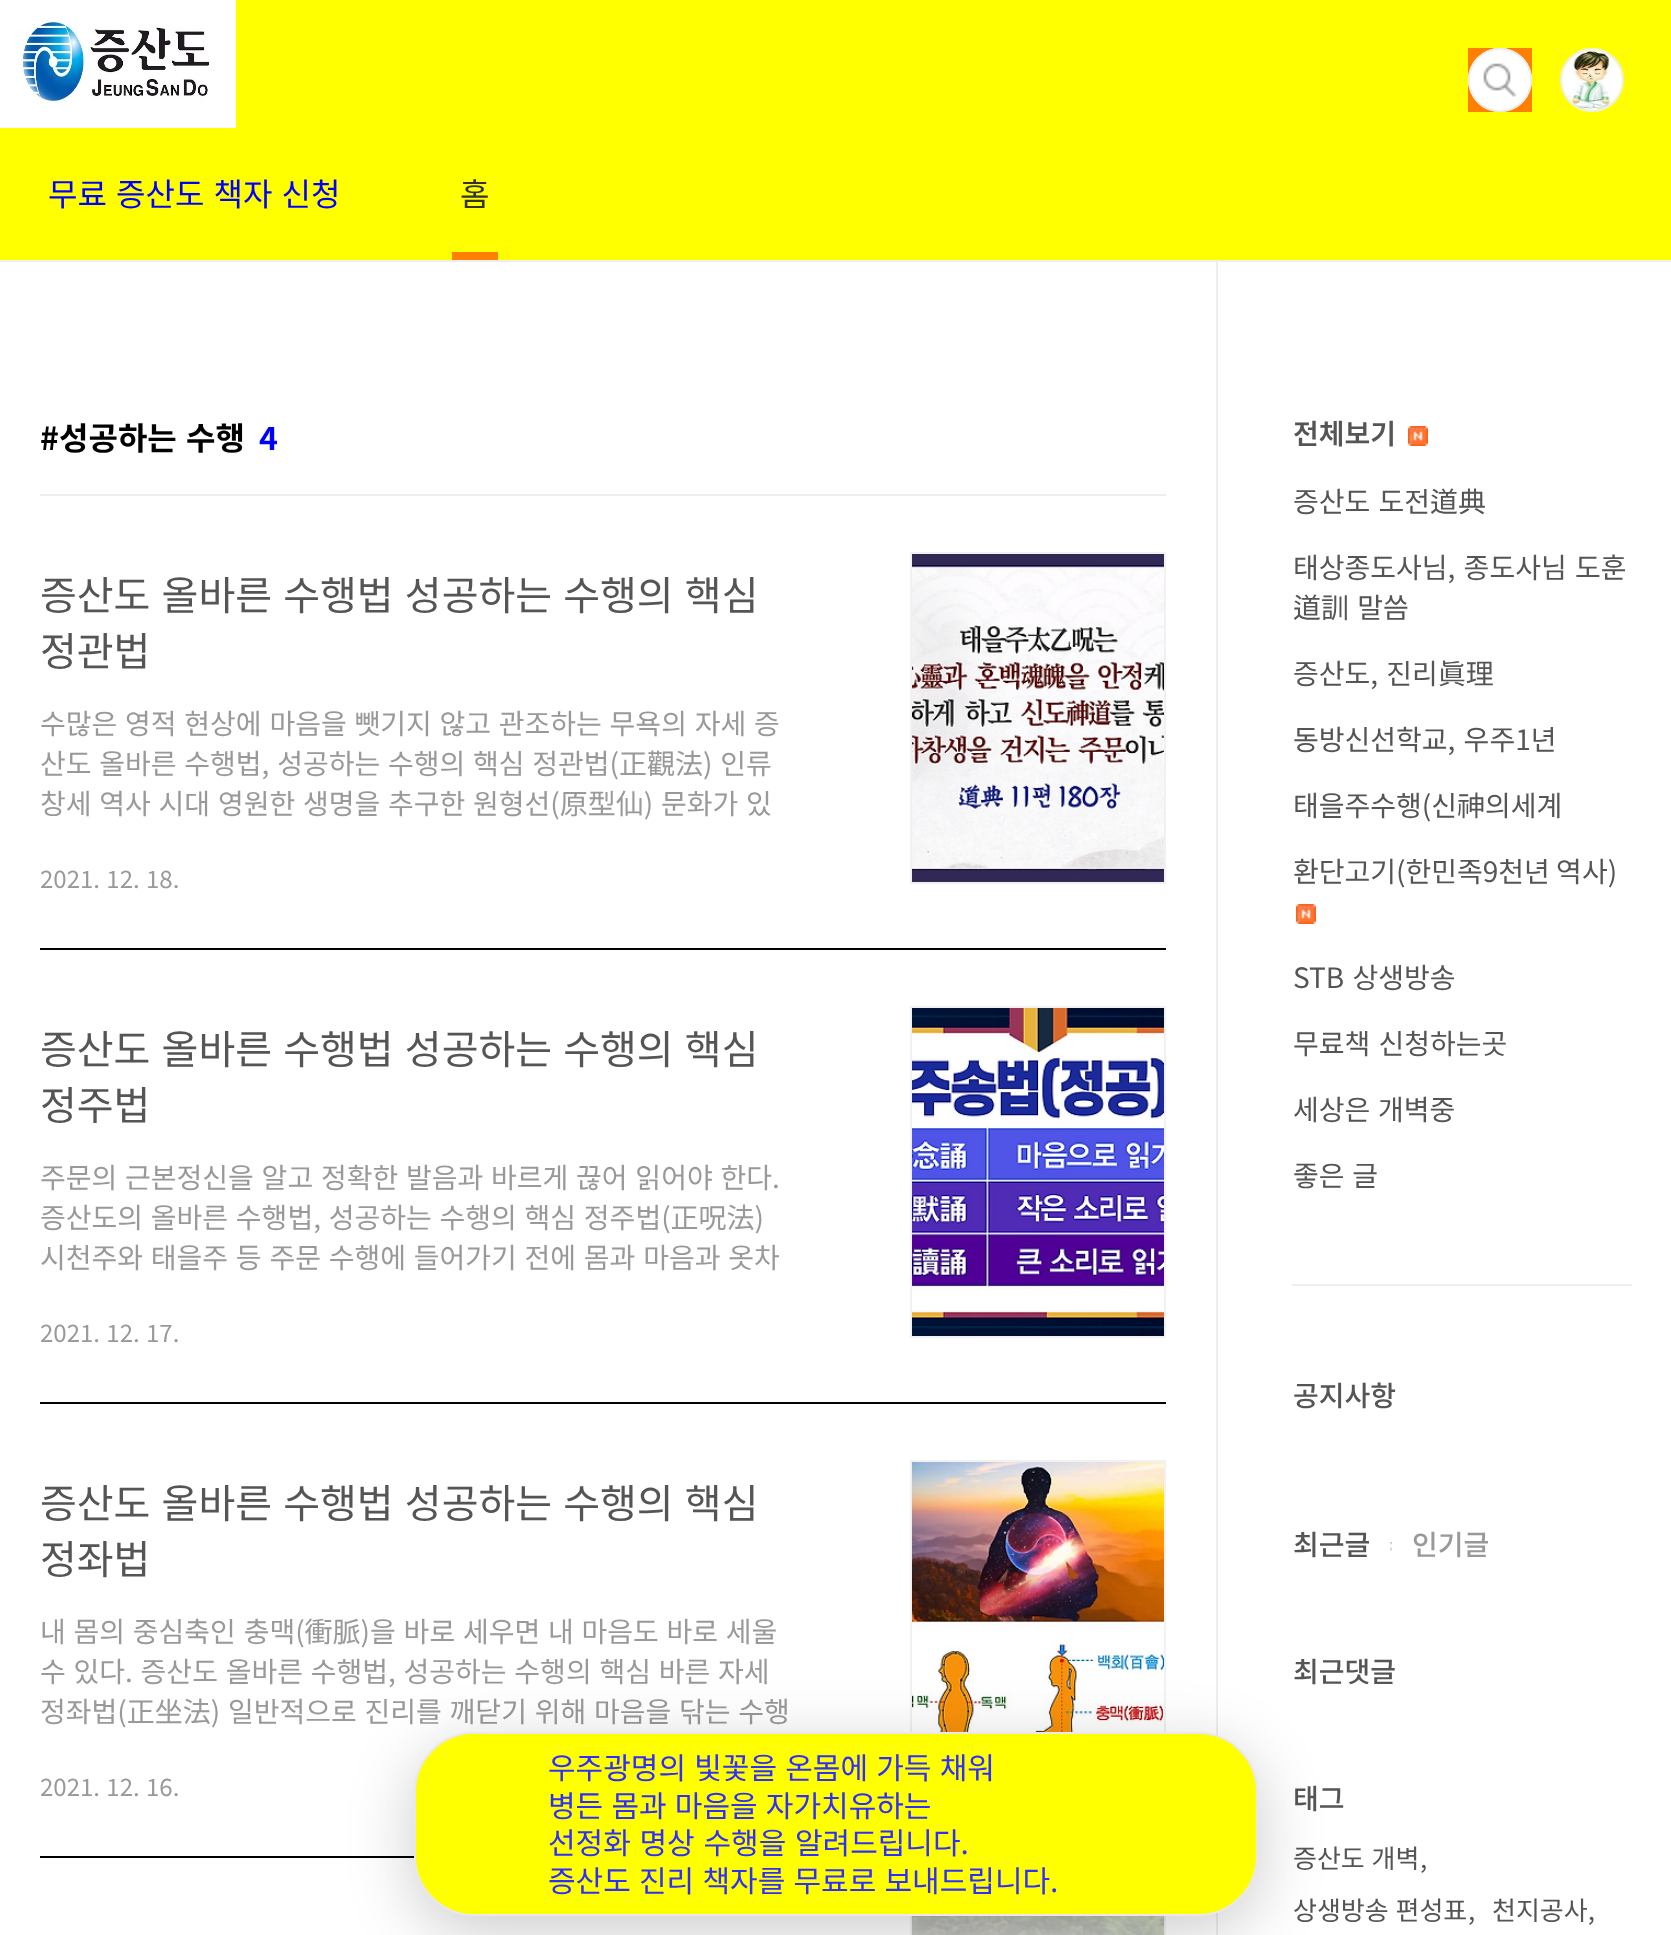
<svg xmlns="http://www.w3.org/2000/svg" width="1671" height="1935">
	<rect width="100%" height="100%" fill="#FFFFFF" />
	<rect x="0" y="0" width="1671" height="260" fill="#FFFF00" />
	<rect x="0" y="260" width="1671" height="2" fill="#EEEEEE" />
	<image x="0" y="0" width="236" height="128" href="assets/img1.png" />
	<rect x="1468" y="48" width="64" height="64" fill="#FF8000" />
	<circle cx="1500" cy="80" r="32" fill="#FFFFFF" />
	<image x="1483" y="63" width="34" height="34" href="assets/img2.png" />
	<circle cx="1500" cy="80" r="31" fill="none" stroke="#EEEEEE" stroke-width="2" />
	<circle cx="1592" cy="80" r="31" fill="none" stroke="#EEEEEE" stroke-width="2" />
	<image x="1562" y="50" width="60" height="60" href="assets/img3.png" />
	<text x="48" y="206" word-spacing="2" font-family="Noto Sans KR" font-size="32" fill="#0000FF">무료 증산도 책자 신청</text>
	<text x="460" y="206" font-family="Noto Sans KR" font-size="32" fill="#333333">홈</text>
	<rect x="452" y="252" width="46" height="8" fill="#FF8000" />
	<rect x="40" y="494" width="1126" height="2" fill="#EEEEEE" />
	<g font-family="Noto Sans KR" font-size="32" font-weight="700" fill="#000000">
		<text x="40" y="450">#</text>
		<text x="59" y="450" word-spacing="2">성공하는 수행</text>
	</g>
	<text x="259" y="450" font-family="Noto Sans KR" font-size="32" font-weight="700" fill="#0000FF">4</text>
	<rect x="40" y="948" width="1126" height="2" fill="#000000" />
	<g font-family="Noto Sans KR" font-size="40" fill="#555555">
		<text x="40" y="610" word-spacing="2.25">증산도 올바른 수행법 성공하는 수행의 핵심</text>
		<text x="40" y="666">정관법</text>
	</g>
	<rect x="911" y="553" width="254" height="330" fill="none" stroke="#F1F1F1" stroke-width="2" />
	<image x="912" y="554" width="252" height="328" href="assets/img4.png" />
	<g font-family="Noto Sans KR" font-size="28" fill="#999999">
		<text x="40" y="734" word-spacing="1.5">수많은 영적 현상에 마음을 뺏기지 않고 관조하는 무욕의 자세 증</text>
		<text x="40" y="774" word-spacing="1.5">산도 올바른 수행법, 성공하는 수행의 핵심 정관법(正觀法) 인류</text>
		<text x="40" y="814" word-spacing="1.5">창세 역사 시대 영원한 생명을 추구한 원형선(原型仙) 문화가 있</text>
	</g>
	<text x="40" y="888" word-spacing="1" font-family="Noto Sans KR" font-size="24" fill="#999999">2021. 12. 18.</text>
	<rect x="40" y="1402" width="1126" height="2" fill="#000000" />
	<g font-family="Noto Sans KR" font-size="40" fill="#555555">
		<text x="40" y="1064" word-spacing="2.25">증산도 올바른 수행법 성공하는 수행의 핵심</text>
		<text x="40" y="1120">정주법</text>
	</g>
	<rect x="911" y="1007" width="254" height="330" fill="none" stroke="#F1F1F1" stroke-width="2" />
	<image x="912" y="1008" width="252" height="328" href="assets/img5.png" />
	<g font-family="Noto Sans KR" font-size="28" fill="#999999">
		<text x="40" y="1188" word-spacing="1.5">주문의 근본정신을 알고 정확한 발음과 바르게 끊어 읽어야 한다.</text>
		<text x="40" y="1228" word-spacing="1.5">증산도의 올바른 수행법, 성공하는 수행의 핵심 정주법(正呪法)</text>
		<text x="40" y="1268" word-spacing="1.5">시천주와 태을주 등 주문 수행에 들어가기 전에 몸과 마음과 옷차</text>
	</g>
	<text x="40" y="1342" word-spacing="1" font-family="Noto Sans KR" font-size="24" fill="#999999">2021. 12. 17.</text>
	<rect x="40" y="1856" width="375" height="2" fill="#000000" />
	<g font-family="Noto Sans KR" font-size="40" fill="#555555">
		<text x="40" y="1518" word-spacing="2.25">증산도 올바른 수행법 성공하는 수행의 핵심</text>
		<text x="40" y="1574">정좌법</text>
	</g>
	<rect x="911" y="1461" width="254" height="330" fill="none" stroke="#F1F1F1" stroke-width="2" />
	<image x="912" y="1462" width="252" height="270" href="assets/img6.png" />
	<g font-family="Noto Sans KR" font-size="28" fill="#999999">
		<text x="40" y="1642" word-spacing="1.5">내 몸의 중심축인 충맥(衝脈)을 바로 세우면 내 마음도 바로 세울</text>
		<text x="40" y="1682" word-spacing="1.5">수 있다. 증산도 올바른 수행법, 성공하는 수행의 핵심 바른 자세</text>
		<text x="40" y="1722" word-spacing="1.5">정좌법(正坐法) 일반적으로 진리를 깨닫기 위해 마음을 닦는 수행</text>
	</g>
	<text x="40" y="1796" word-spacing="1" font-family="Noto Sans KR" font-size="24" fill="#999999">2021. 12. 16.</text>
	<rect x="911" y="1915" width="254" height="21" fill="none" stroke="#F1F1F1" stroke-width="2" />
	<image x="912" y="1916" width="252" height="19" href="assets/img7.png" />
	<rect x="1216" y="262" width="2" height="1673" fill="#EEEEEE" />
	<text x="1293" y="444" font-family="Noto Sans KR" font-size="28" font-weight="600" fill="#555555">전체보기</text>
	<image x="1408" y="426" width="20" height="20" href="assets/img8.png" />
	<g font-family="Noto Sans KR" font-size="28" fill="#555555">
		<text x="1293" y="512" word-spacing="2">증산도 도전道典</text>
		<text x="1293" y="578" word-spacing="2">태상종도사님, 종도사님 도훈</text>
		<text x="1293" y="618" word-spacing="2">道訓 말씀</text>
		<text x="1293" y="684" word-spacing="2">증산도, 진리眞理</text>
		<text x="1293" y="750" word-spacing="2">동방신선학교, 우주1년</text>
		<text x="1293" y="816">태을주수행(신神의세계</text>
		<text x="1293" y="882">환단고기(한민족9천년 역사)</text>
	</g>
	<image x="1296" y="904" width="20" height="20" href="assets/img8.png" />
	<g font-family="Noto Sans KR" font-size="28" fill="#555555">
		<text x="1293" y="988" word-spacing="2">STB 상생방송</text>
		<text x="1293" y="1054" word-spacing="2">무료책 신청하는곳</text>
		<text x="1293" y="1120" word-spacing="1.5">세상은 개벽중</text>
		<text x="1293" y="1186" word-spacing="1.5">좋은 글</text>
	</g>
	<rect x="1292" y="1284" width="340" height="2" fill="#EEEEEE" />
	<g font-family="Noto Sans KR" font-size="28" font-weight="500" fill="#555555">
		<text x="1293" y="1406">공지사항</text>
		<text x="1293" y="1555">최근글</text>
	</g>
	<image x="1390" y="1542" width="2" height="9" href="assets/img9.png" />
	<text x="1412" y="1555" font-family="Noto Sans KR" font-size="28" font-weight="500" fill="#999999">인기글</text>
	<g font-family="Noto Sans KR" font-size="28" font-weight="500" fill="#555555">
		<text x="1293" y="1682">최근댓글</text>
		<text x="1293" y="1809">태그</text>
	</g>
	<g font-family="Noto Sans KR" font-size="26" fill="#555555">
		<text x="1293" y="1868" word-spacing="1">증산도 개벽</text>
		<text x="1420" y="1868">,</text>
		<text x="1293" y="1920" word-spacing="1">상생방송 편성표</text>
		<text x="1468" y="1920">,</text>
		<text x="1492" y="1920">천지공사,</text>
	</g>
	<rect x="414" y="1748" width="844" height="184" rx="60" fill="#000000" fill-opacity="0.2" filter="blur(32px)" />
	<rect x="415" y="1733" width="842" height="182" rx="59" fill="#FFFF00" stroke="#E9E9E9" stroke-width="2" />
	<g font-family="Noto Sans KR" font-size="30" fill="#2E2EFE">
		<text x="548" y="1779" word-spacing="1.5">우주광명의 빛꽃을 온몸에 가득 채워</text>
		<text x="548" y="1817" word-spacing="1.5">병든 몸과 마음을 자가치유하는</text>
		<text x="548" y="1854" word-spacing="2">선정화 명상 수행을 알려드립니다.</text>
		<text x="548" y="1892" word-spacing="1.5">증산도 진리 책자를 무료로 보내드립니다.</text>
	</g>
</svg>
